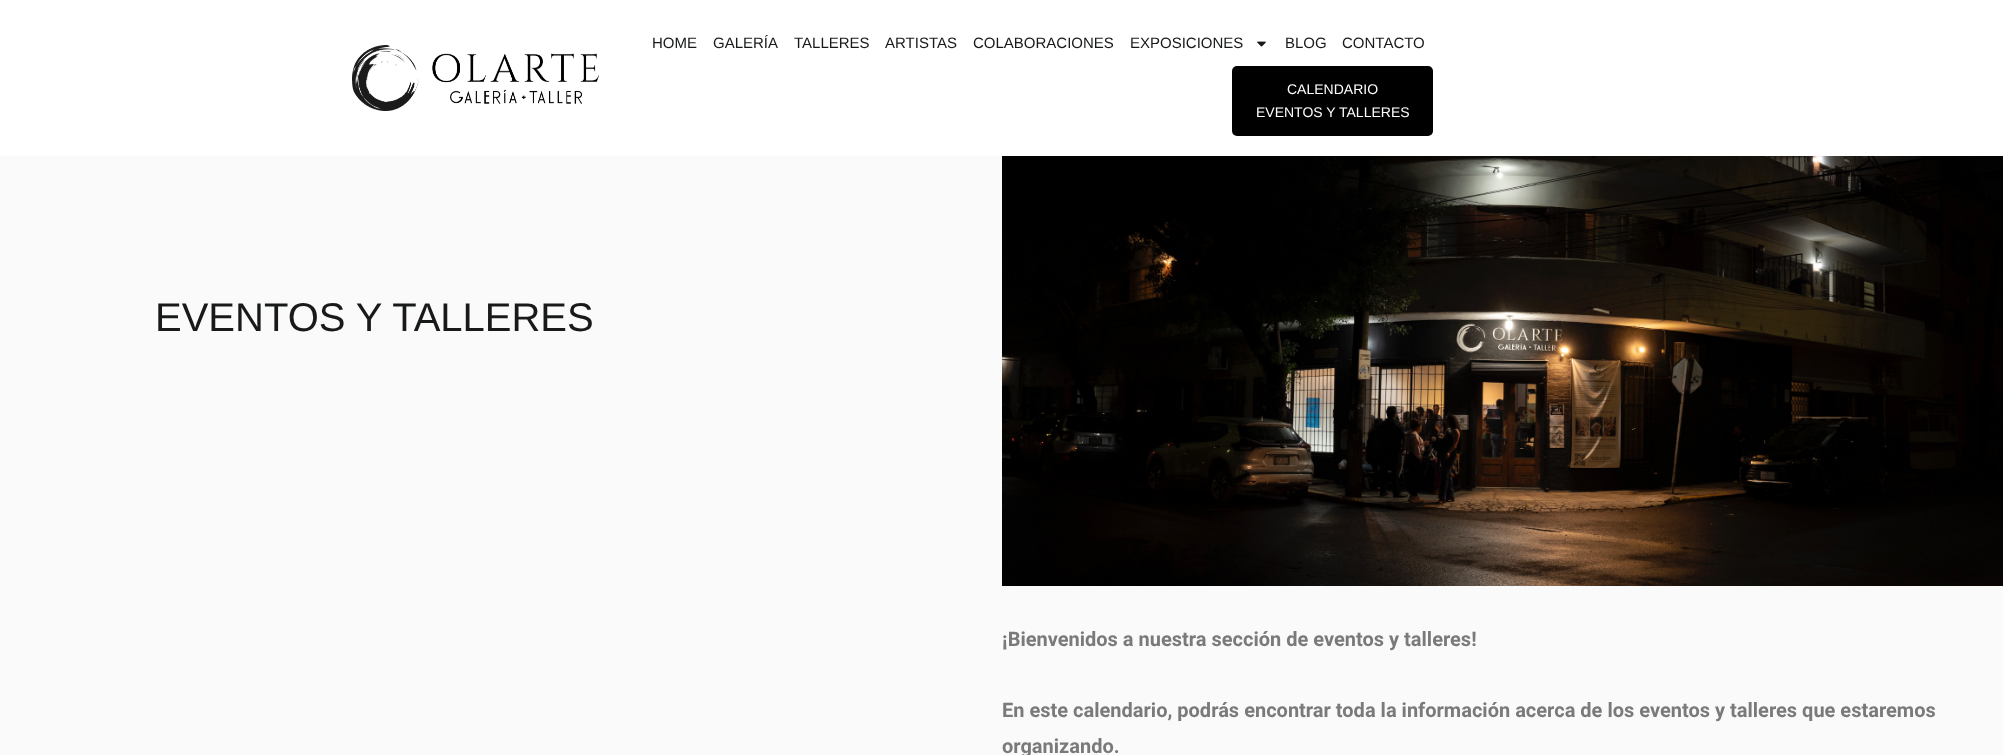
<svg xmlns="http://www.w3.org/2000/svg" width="2003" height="755">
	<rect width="100%" height="100%" fill="#FAFAFA" />
	<rect x="0" y="0" width="2003" height="156" fill="#FFFFFF" />
	<image x="352" y="45" width="247" height="66" href="assets/img1.png" />
	<g font-family="Liberation Sans" font-size="15" fill="#171A19">
		<text x="652" y="48">HOME</text>
		<text x="713" y="48">GALERÍA</text>
		<text x="794" y="48">TALLERES</text>
		<text x="885" y="48">ARTISTAS</text>
		<text x="973" y="48">COLABORACIONES</text>
		<text x="1130" y="48">EXPOSICIONES</text>
	</g>
	<image x="1257" y="41" width="9" height="6" href="assets/img2.png" />
	<g font-family="Liberation Sans" font-size="15" fill="#171A19">
		<text x="1285" y="48">BLOG</text>
		<text x="1342" y="48">CONTACTO</text>
	</g>
	<rect x="1232" y="66" width="201" height="70" rx="5" fill="#000000" />
	<g font-family="Liberation Sans" font-size="14" fill="#FFFFFF">
		<text x="1287" y="94">CALENDARIO</text>
		<text x="1256" y="117">EVENTOS Y TALLERES</text>
	</g>
	<text x="155" y="331" font-family="Liberation Sans" font-size="40" fill="#171A19">EVENTOS Y TALLERES</text>
	<image x="1002" y="156" width="1001" height="430" href="assets/img3.png" />
	<g font-family="Roboto" font-size="20" font-weight="700" fill="#7A7A7A">
		<text x="1002" y="646">¡Bienvenidos a nuestra sección de eventos y talleres!</text>
		<text x="1002" y="717">En este calendario, podrás encontrar toda la información acerca de los eventos y talleres que estaremos</text>
		<text x="1002" y="753">organizando.</text>
	</g>
</svg>
